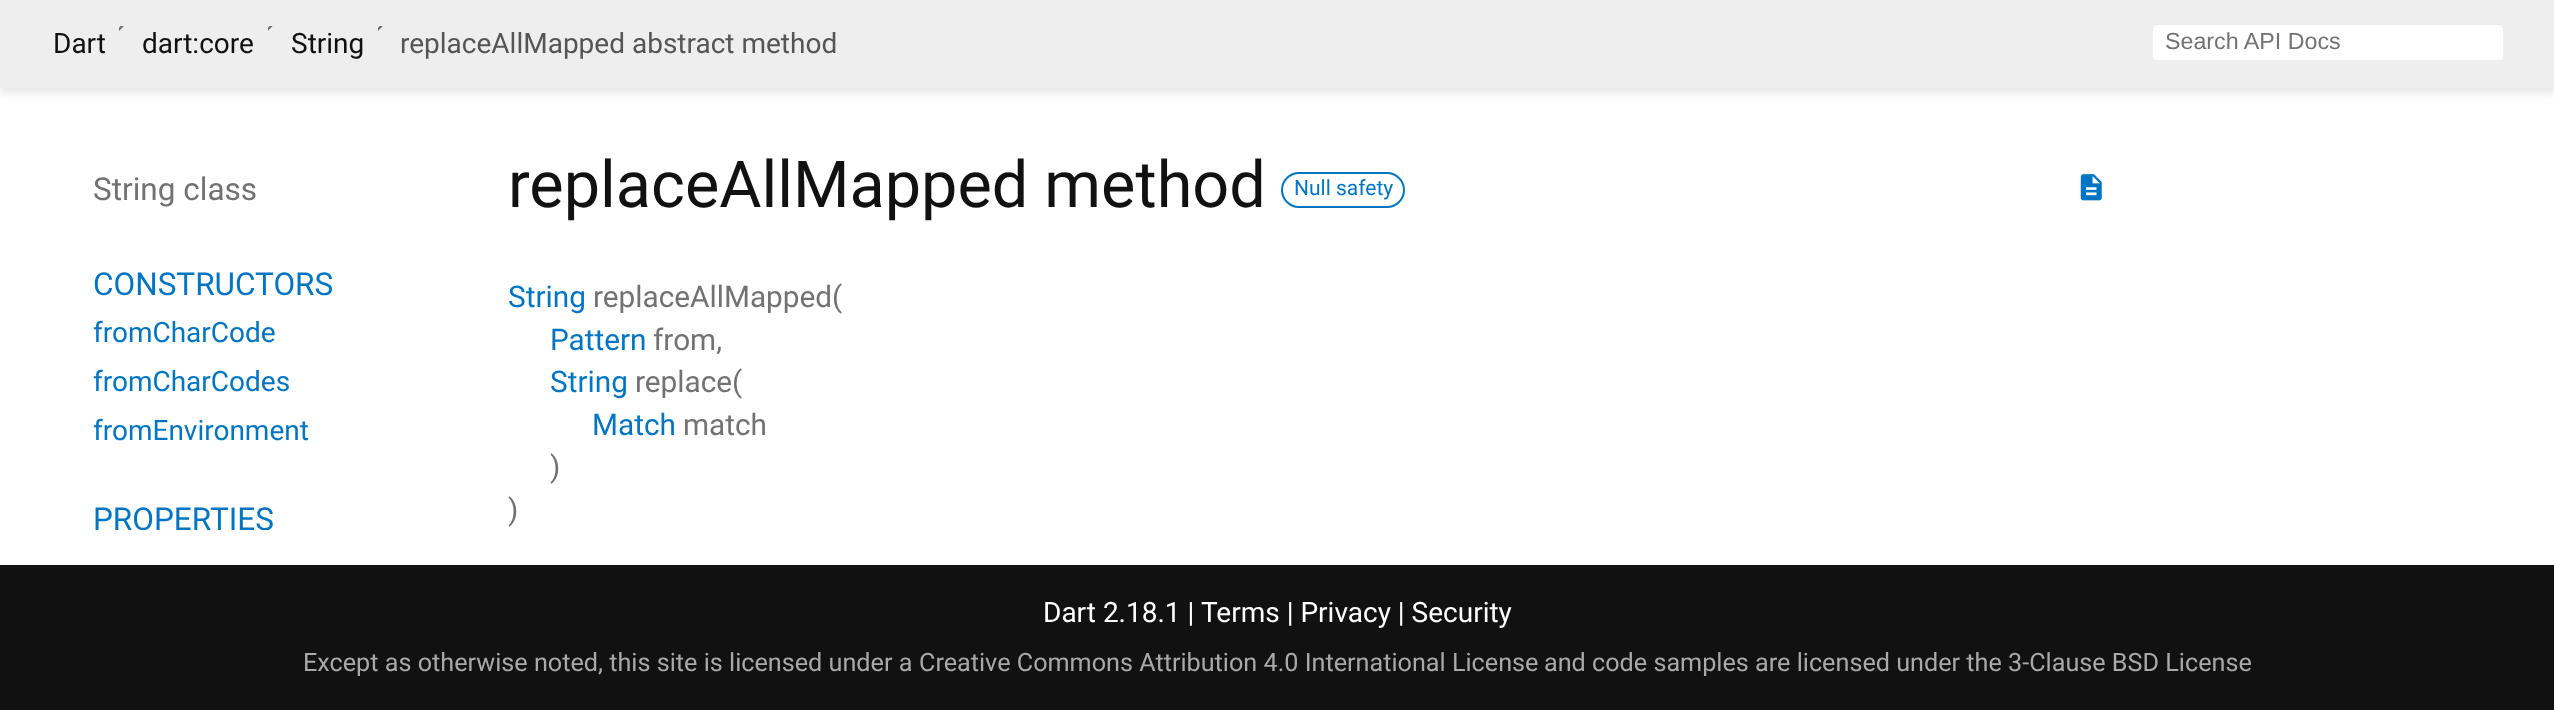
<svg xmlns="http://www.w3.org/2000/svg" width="2554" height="710">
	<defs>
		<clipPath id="clip1"><rect x="88" y="457" width="350" height="73" /></clipPath>
	</defs>
	<rect width="100%" height="100%" fill="#FFFFFF" />
	<rect x="0" y="5" width="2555" height="88" fill="#000000" fill-opacity="0.1" filter="blur(4.5px)" />
	<rect x="0" y="0" width="2554" height="88" fill="#EEEEEE" />
	<text x="53" y="53" font-family="Roboto" font-size="28" fill="#111111">Dart</text>
	<image x="119" y="26" width="5" height="5" href="assets/img1.png" />
	<text x="142" y="53" font-family="Roboto" font-size="28" fill="#111111">dart:core</text>
	<image x="268" y="26" width="5" height="5" href="assets/img2.png" />
	<text x="291" y="53" font-family="Roboto" font-size="28" fill="#111111">String</text>
	<image x="378" y="26" width="5" height="5" href="assets/img1.png" />
	<text x="400" y="53" font-family="Roboto" font-size="28" fill="#555555">replaceAllMapped abstract method</text>
	<rect x="2153" y="25" width="350" height="35" rx="4" fill="#FFFFFF" />
	<text x="2165" y="49" font-family="Liberation Sans" font-size="23.25" fill="#727272">Search API Docs</text>
	<text x="93" y="200" font-family="Roboto" font-size="31.5" fill="#727272">String class</text>
	<text x="93" y="295" font-family="Roboto" font-size="31.5" fill="#0175C2">CONSTRUCTORS</text>
	<g font-family="Roboto" font-size="28" fill="#0175C2">
		<text x="93" y="342">fromCharCode</text>
		<text x="93" y="391">fromCharCodes</text>
		<text x="93" y="440">fromEnvironment</text>
	</g>
	<g clip-path="url(#clip1)">
		<text x="93" y="530" font-family="Roboto" font-size="31.5" fill="#0175C2">PROPERTIES</text>
	</g>
	<text x="508" y="207" font-family="Roboto" font-size="64.75" fill="#111111">replaceAllMapped method</text>
	<rect x="1282" y="173" width="122" height="34" rx="17" fill="none" stroke="#0175C2" stroke-width="2" />
	<text x="1294" y="195" font-family="Roboto" font-size="21" fill="#0175C2">Null safety</text>
	<image x="2080" y="174" width="22" height="27" href="assets/img3.png" />
	<text x="508" y="307" font-family="Roboto" font-size="29.75" fill="#0175C2">String</text>
	<text x="593" y="307" font-family="Roboto" font-size="29.75" fill="#727272">replaceAllMapped(</text>
	<text x="550" y="350" font-family="Roboto" font-size="29.75" fill="#0175C2">Pattern</text>
	<text x="653" y="350" font-family="Roboto" font-size="29.75" fill="#727272">from,</text>
	<text x="550" y="392" font-family="Roboto" font-size="29.75" fill="#0175C2">String</text>
	<text x="635" y="392" font-family="Roboto" font-size="29.75" fill="#727272">replace(</text>
	<text x="592" y="435" font-family="Roboto" font-size="29.75" fill="#0175C2">Match</text>
	<g font-family="Roboto" font-size="29.75" fill="#727272">
		<text x="683" y="435">match</text>
		<text x="550" y="477">)</text>
		<text x="508" y="520">)</text>
	</g>
	<rect x="0" y="565" width="2554" height="145" fill="#111111" />
	<text x="1201" y="622" font-family="Roboto" font-size="28" fill="#FFFFFF">Terms | Privacy | Security</text>
	<g font-family="Roboto" font-size="25.2" fill="#A9A9A9">
		<text x="303" y="671">Except as otherwise noted, this site is licensed under a</text>
		<text x="919" y="671">Creative Commons Attribution 4.0 International License</text>
		<text x="1544" y="671">and code samples are licensed under the 3-Clause BSD License</text>
	</g>
	<text x="1043" y="622" font-family="Roboto" font-size="28" fill="#FFFFFF">Dart 2.18.1 |</text>
</svg>
